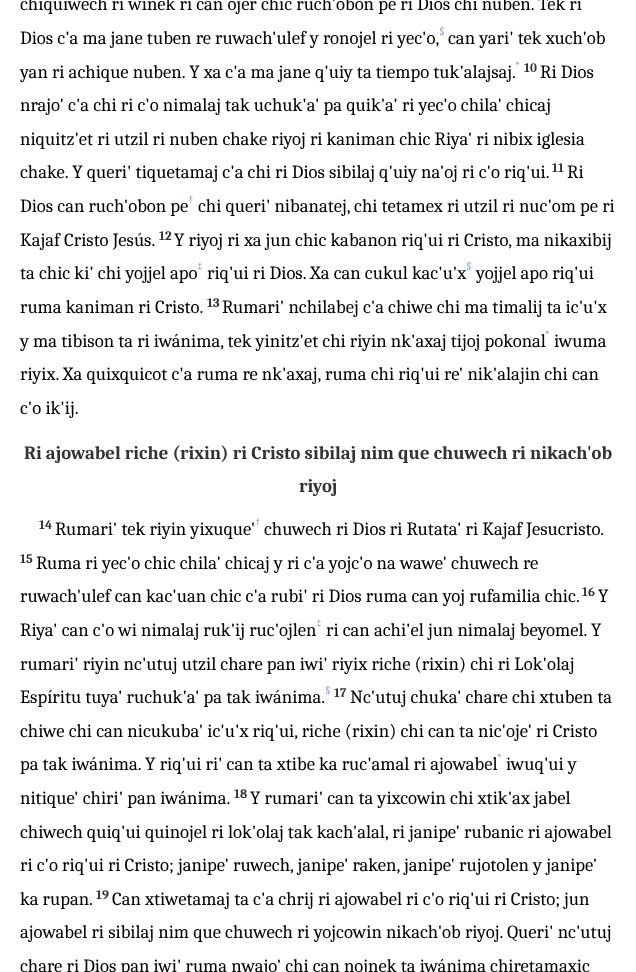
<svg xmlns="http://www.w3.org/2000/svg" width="636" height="972">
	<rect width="100%" height="100%" fill="#FFFFFF" />
	<g font-family="Caladea" font-size="18.7" fill="#000000">
		<text x="20" y="10">chiquiwech ri winek ri can ojer chic ruch'obon pe ri Dios chi nuben. Tek ri</text>
		<text x="20" y="44">Dios c'a ma jane tuben re ruwach'ulef y ronojel ri yec'o,</text>
	</g>
	<text x="439" y="35" font-family="Caladea" font-size="11" fill="#7491CE">§</text>
	<g font-family="Caladea" font-size="18.7" fill="#000000">
		<text x="448" y="44">can yari' tek xuch'ob</text>
		<text x="20" y="78">yan ri achique nuben. Y xa c'a ma jane q'uiy ta tiempo tuk'alajsaj.</text>
	</g>
	<text x="515" y="69" font-family="Caladea" font-size="11" fill="#7491CE">*</text>
	<text x="524" y="72" font-family="Caladea" font-size="13" font-weight="700" fill="#333333">10</text>
	<g font-family="Caladea" font-size="18.7" fill="#000000">
		<text x="540" y="78">Ri Dios</text>
		<text x="20" y="111">nrajo' c'a chi ri c'o nimalaj tak uchuk'a' pa quik'a' ri yec'o chila' chicaj</text>
		<text x="20" y="145">niquitz'et ri utzil ri nuben chake riyoj ri kaniman chic Riya' ri nibix iglesia</text>
		<text x="20" y="178">chake. Y queri' tiquetamaj c'a chi ri Dios sibilaj q'uiy na'oj ri c'o riq'ui.</text>
	</g>
	<text x="552" y="172" font-family="Caladea" font-size="13" font-weight="700" fill="#333333">11</text>
	<g font-family="Caladea" font-size="18.7" fill="#000000">
		<text x="567" y="178">Ri</text>
		<text x="20" y="212">Dios can ruch'obon pe</text>
	</g>
	<text x="188" y="203" font-family="Caladea" font-size="11" fill="#7491CE">†</text>
	<g font-family="Caladea" font-size="18.7" fill="#000000">
		<text x="198" y="212">chi queri' nibanatej, chi tetamex ri utzil ri nuc'om pe ri</text>
		<text x="20" y="246">Kajaf Cristo Jesús.</text>
	</g>
	<text x="159" y="240" font-family="Caladea" font-size="13" font-weight="700" fill="#333333">12</text>
	<g font-family="Caladea" font-size="18.7" fill="#000000">
		<text x="174" y="246">Y riyoj ri xa jun chic kabanon riq'ui ri Cristo, ma nikaxibij</text>
		<text x="20" y="279">ta chic ki' chi yojjel apo</text>
	</g>
	<text x="197" y="270" font-family="Caladea" font-size="11" fill="#7491CE">‡</text>
	<text x="207" y="279" font-family="Caladea" font-size="18.7" fill="#000000">riq'ui ri Dios. Xa can cukul kac'u'x</text>
	<text x="466" y="270" font-family="Caladea" font-size="11" fill="#7491CE">§</text>
	<g font-family="Caladea" font-size="18.7" fill="#000000">
		<text x="476" y="279">yojjel apo riq'ui</text>
		<text x="20" y="313">ruma kaniman ri Cristo.</text>
	</g>
	<text x="207" y="307" font-family="Caladea" font-size="13" font-weight="700" fill="#333333">13</text>
	<text x="222" y="313" font-family="Caladea" font-size="18.7" fill="#000000">Rumari' nchilabej c'a chiwe chi ma timalij ta ic'u'x</text>
	<text x="545" y="338" font-family="Caladea" font-size="11" fill="#7491CE">*</text>
	<g font-family="Caladea" font-size="18.7" fill="#000000">
		<text x="20" y="347">y ma tibison ta ri iwánima, tek yinitz'et chi riyin nk'axaj tijoj pokonal</text>
		<text x="554" y="347">iwuma</text>
		<text x="20" y="380">riyix. Xa quixquicot c'a ruma re nk'axaj, ruma chi riq'ui re' nik'alajin chi can</text>
		<text x="20" y="414">c'o ik'ij.</text>
	</g>
	<g font-family="Caladea" font-size="18.7" font-weight="700" fill="#333333">
		<text x="24" y="459">Ri ajowabel riche (rixin) ri Cristo sibilaj nim que chuwech ri nikach'ob</text>
		<text x="299" y="492">riyoj</text>
	</g>
	<text x="39" y="529" font-family="Caladea" font-size="13" font-weight="700" fill="#333333">14</text>
	<text x="55" y="535" font-family="Caladea" font-size="18.7" fill="#000000">Rumari' tek riyin yixuque'</text>
	<text x="255" y="526" font-family="Caladea" font-size="11" fill="#7491CE">†</text>
	<text x="264" y="535" font-family="Caladea" font-size="18.7" fill="#000000">chuwech ri Dios ri Rutata' ri Kajaf Jesucristo.</text>
	<text x="20" y="563" font-family="Caladea" font-size="13" font-weight="700" fill="#333333">15</text>
	<g font-family="Caladea" font-size="18.7" fill="#000000">
		<text x="36" y="569">Ruma ri yec'o chic chila' chicaj y ri c'a yojc'o na wawe' chuwech re</text>
		<text x="20" y="602">ruwach'ulef can kac'uan chic c'a rubi' ri Dios ruma can yoj rufamilia chic.</text>
	</g>
	<text x="582" y="596" font-family="Caladea" font-size="13" font-weight="700" fill="#333333">16</text>
	<g font-family="Caladea" font-size="18.7" fill="#000000">
		<text x="598" y="602">Y</text>
		<text x="20" y="636">Riya' can c'o wi nimalaj ruk'ij ruc'ojlen</text>
	</g>
	<text x="316" y="627" font-family="Caladea" font-size="11" fill="#7491CE">‡</text>
	<g font-family="Caladea" font-size="18.7" fill="#000000">
		<text x="326" y="636">ri can achi'el jun nimalaj beyomel. Y</text>
		<text x="20" y="670">rumari' riyin nc'utuj utzil chare pan iwi' riyix riche (rixin) chi ri Lok'olaj</text>
		<text x="20" y="703">Espíritu tuya' ruchuk'a' pa tak iwánima.</text>
	</g>
	<text x="325" y="694" font-family="Caladea" font-size="11" fill="#7491CE">§</text>
	<text x="334" y="697" font-family="Caladea" font-size="13" font-weight="700" fill="#333333">17</text>
	<g font-family="Caladea" font-size="18.7" fill="#000000">
		<text x="350" y="703">Nc'utuj chuka' chare chi xtuben ta</text>
		<text x="20" y="737">chiwe chi can nicukuba' ic'u'x riq'ui, riche (rixin) chi can ta nic'oje' ri Cristo</text>
	</g>
	<text x="497" y="761" font-family="Caladea" font-size="11" fill="#7491CE">*</text>
	<g font-family="Caladea" font-size="18.7" fill="#000000">
		<text x="20" y="770">pa tak iwánima. Y riq'ui ri' can ta xtibe ka ruc'amal ri ajowabel</text>
		<text x="506" y="770">iwuq'ui y</text>
		<text x="20" y="804">nitique' chiri' pan iwánima.</text>
	</g>
	<text x="234" y="798" font-family="Caladea" font-size="13" font-weight="700" fill="#333333">18</text>
	<g font-family="Caladea" font-size="18.7" fill="#000000">
		<text x="250" y="804">Y rumari' can ta yixcowin chi xtik'ax jabel</text>
		<text x="20" y="838">chiwech quiq'ui quinojel ri lok'olaj tak kach'alal, ri janipe' rubanic ri ajowabel</text>
		<text x="20" y="871">ri c'o riq'ui ri Cristo; janipe' ruwech, janipe' raken, janipe' rujotolen y janipe'</text>
		<text x="20" y="905">ka rupan.</text>
	</g>
	<text x="96" y="899" font-family="Caladea" font-size="13" font-weight="700" fill="#333333">19</text>
	<g font-family="Caladea" font-size="18.7" fill="#000000">
		<text x="112" y="905">Can xtiwetamaj ta c'a chrij ri ajowabel ri c'o riq'ui ri Cristo; jun</text>
		<text x="20" y="938">ajowabel ri sibilaj nim que chuwech ri yojcowin nikach'ob riyoj. Queri' nc'utuj</text>
		<text x="20" y="972">chare ri Dios pan iwi' ruma nwajo' chi can nojnek ta iwánima chiretamaxic</text>
	</g>
</svg>
